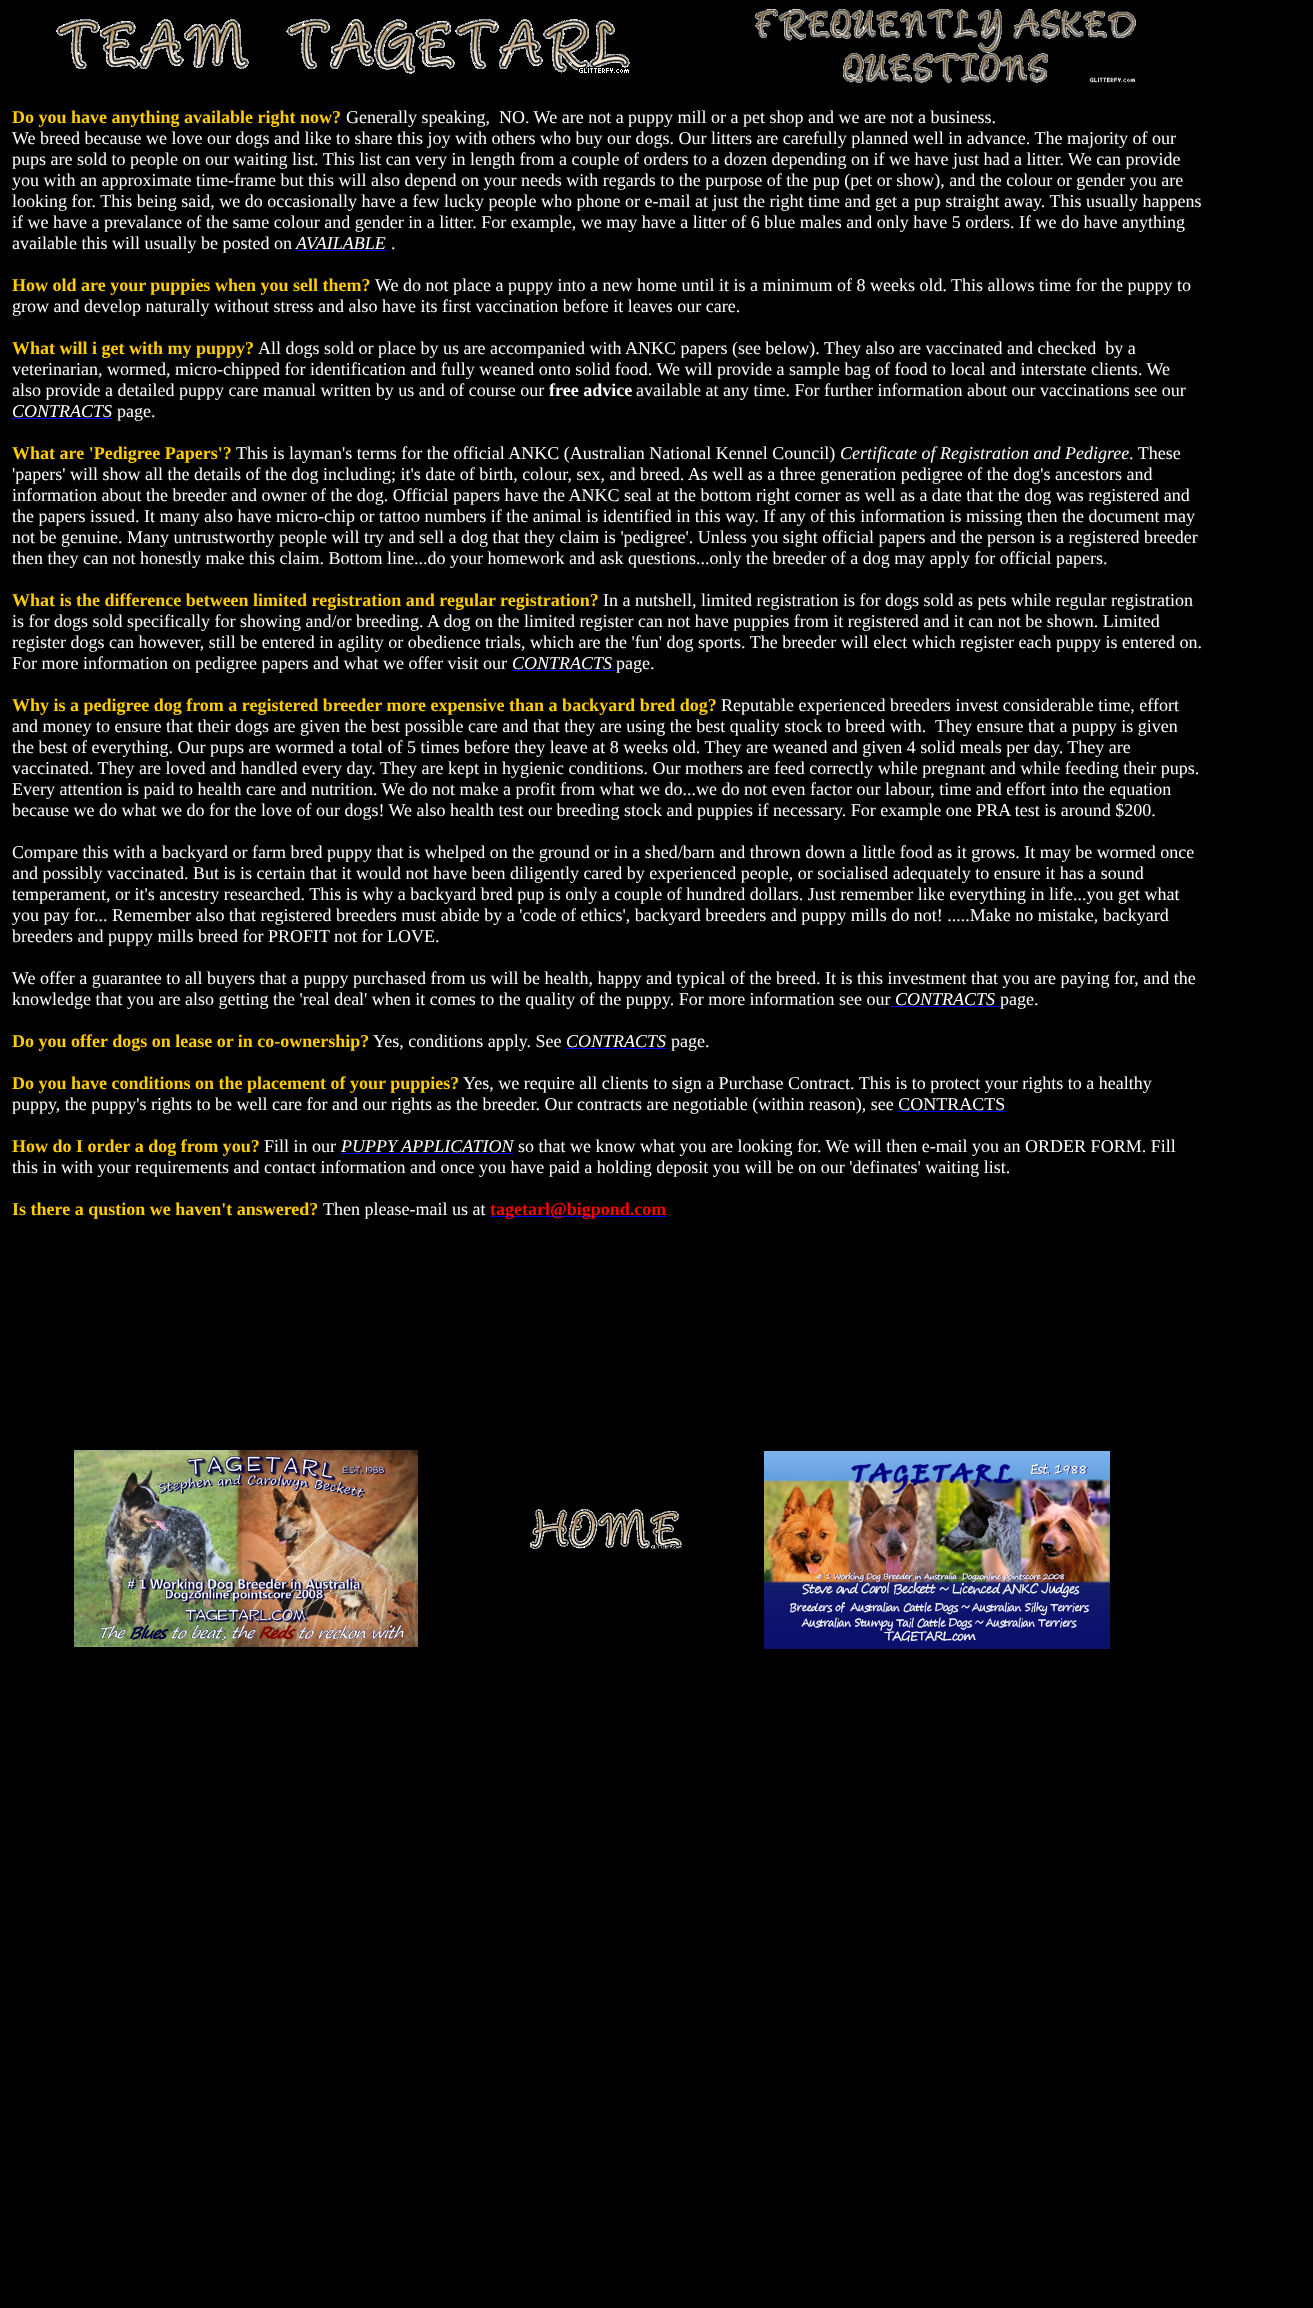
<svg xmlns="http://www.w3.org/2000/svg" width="1313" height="2308">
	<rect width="100%" height="100%" fill="#000000" />
	<image x="56" y="19" width="574" height="55" href="assets/img1.png" />
	<image x="755" y="9" width="381" height="74" href="assets/img2.png" />
	<text x="12" y="123" font-family="Liberation Serif" font-size="18" font-weight="700" fill="#FFCC00">Do you have anything available right now?</text>
	<g font-family="Liberation Serif" font-size="18" fill="#FFFFFF">
		<text x="346" y="123" xml:space="preserve">Generally speaking,  NO. We are not a puppy mill or a pet shop and we are not a business.</text>
		<text x="12" y="144">We breed because we love our dogs and like to share this joy with others who buy our dogs. Our litters are carefully planned well in advance. The majority of our</text>
		<text x="12" y="165">pups are sold to people on our waiting list. This list can very in length from a couple of orders to a dozen depending on if we have just had a litter. We can provide</text>
		<text x="12" y="186">you with an approximate time-frame but this will also depend on your needs with regards to the purpose of the pup (pet or show), and the colour or gender you are</text>
		<text x="12" y="207">looking for. This being said, we do occasionally have a few lucky people who phone or e-mail at just the right time and get a pup straight away. This usually happens</text>
		<text x="12" y="228">if we have a prevalance of the same colour and gender in a litter. For example, we may have a litter of 6 blue males and only have 5 orders. If we do have anything</text>
		<text x="12" y="249">available this will usually be posted on</text>
	</g>
	<text x="296" y="249" font-family="Liberation Serif" font-size="18" font-style="italic" fill="#FFFFFF">AVAILABLE</text>
	<rect x="296" y="250" width="90" height="1" fill="#0000FF" />
	<text x="391" y="249" font-family="Liberation Serif" font-size="18" fill="#FFFFFF">.</text>
	<text x="12" y="291" font-family="Liberation Serif" font-size="18" font-weight="700" fill="#FFCC00">How old are your puppies when you sell them?</text>
	<g font-family="Liberation Serif" font-size="18" fill="#FFFFFF">
		<text x="375" y="291">We do not place a puppy into a new home until it is a minimum of 8 weeks old. This allows time for the puppy to</text>
		<text x="12" y="312">grow and develop naturally without stress and also have its first vaccination before it leaves our care.</text>
	</g>
	<text x="12" y="354" font-family="Liberation Serif" font-size="18" font-weight="700" fill="#FFCC00">What will i get with my puppy?</text>
	<g font-family="Liberation Serif" font-size="18" fill="#FFFFFF">
		<text x="258" y="354" xml:space="preserve">All dogs sold or place by us are accompanied with ANKC papers (see below). They also are vaccinated and checked  by a</text>
		<text x="12" y="375">veterinarian, wormed, micro-chipped for identification and fully weaned onto solid food. We will provide a sample bag of food to local and interstate clients. We</text>
		<text x="12" y="396">also provide a detailed puppy care manual written by us and of course our</text>
	</g>
	<text x="549" y="396" font-family="Liberation Serif" font-size="18" font-weight="700" fill="#FFFFFF">free advice</text>
	<text x="636" y="396" font-family="Liberation Serif" font-size="18" fill="#FFFFFF">available at any time. For further information about our vaccinations see our</text>
	<text x="12" y="417" font-family="Liberation Serif" font-size="18" font-style="italic" fill="#FFFFFF">CONTRACTS</text>
	<rect x="12" y="418" width="100" height="1" fill="#0000FF" />
	<text x="117" y="417" font-family="Liberation Serif" font-size="18" fill="#FFFFFF">page.</text>
	<text x="12" y="459" font-family="Liberation Serif" font-size="18" font-weight="700" fill="#FFCC00">What are 'Pedigree Papers'?</text>
	<text x="236" y="459" font-family="Liberation Serif" font-size="18" fill="#FFFFFF">This is layman's terms for the official ANKC (Australian National Kennel Council)</text>
	<text x="840" y="459" font-family="Liberation Serif" font-size="18" font-style="italic" fill="#FFFFFF">Certificate of Registration and Pedigree</text>
	<g font-family="Liberation Serif" font-size="18" fill="#FFFFFF">
		<text x="1129" y="459">. These</text>
		<text x="12" y="480">'papers' will show all the details of the dog including; it's date of birth, colour, sex, and breed. As well as a three generation pedigree of the dog's ancestors and</text>
		<text x="12" y="501">information about the breeder and owner of the dog. Official papers have the ANKC seal at the bottom right corner as well as a date that the dog was registered and</text>
		<text x="12" y="522">the papers issued. It many also have micro-chip or tattoo numbers if the animal is identified in this way. If any of this information is missing then the document may</text>
		<text x="12" y="543">not be genuine. Many untrustworthy people will try and sell a dog that they claim is 'pedigree'. Unless you sight official papers and the person is a registered breeder</text>
		<text x="12" y="564">then they can not honestly make this claim. Bottom line...do your homework and ask questions...only the breeder of a dog may apply for official papers.</text>
	</g>
	<text x="12" y="606" font-family="Liberation Serif" font-size="18" font-weight="700" fill="#FFCC00">What is the difference between limited registration and regular registration?</text>
	<g font-family="Liberation Serif" font-size="18" fill="#FFFFFF">
		<text x="603" y="606">In a nutshell, limited registration is for dogs sold as pets while regular registration</text>
		<text x="12" y="627">is for dogs sold specifically for showing and/or breeding. A dog on the limited register can not have puppies from it registered and it can not be shown. Limited</text>
		<text x="12" y="648">register dogs can however, still be entered in agility or obedience trials, which are the 'fun' dog sports. The breeder will elect which register each puppy is entered on.</text>
		<text x="12" y="669">For more information on pedigree papers and what we offer visit our</text>
	</g>
	<text x="512" y="669" font-family="Liberation Serif" font-size="18" font-style="italic" fill="#FFFFFF">CONTRACTS</text>
	<rect x="512" y="670" width="104" height="1" fill="#0000FF" />
	<text x="616" y="669" font-family="Liberation Serif" font-size="18" fill="#FFFFFF">page.</text>
	<text x="12" y="711" font-family="Liberation Serif" font-size="18" font-weight="700" fill="#FFCC00">Why is a pedigree dog from a registered breeder more expensive than a backyard bred dog?</text>
	<g font-family="Liberation Serif" font-size="18" fill="#FFFFFF">
		<text x="721" y="711">Reputable experienced breeders invest considerable time, effort</text>
		<text x="12" y="732" xml:space="preserve">and money to ensure that their dogs are given the best possible care and that they are using the best quality stock to breed with.  They ensure that a puppy is given</text>
		<text x="12" y="753">the best of everything. Our pups are wormed a total of 5 times before they leave at 8 weeks old. They are weaned and given 4 solid meals per day. They are</text>
		<text x="12" y="774">vaccinated. They are loved and handled every day. They are kept in hygienic conditions. Our mothers are feed correctly while pregnant and while feeding their pups.</text>
		<text x="12" y="795">Every attention is paid to health care and nutrition. We do not make a profit from what we do...we do not even factor our labour, time and effort into the equation</text>
		<text x="12" y="816">because we do what we do for the love of our dogs! We also health test our breeding stock and puppies if necessary. For example one PRA test is around $200.</text>
		<text x="12" y="858">Compare this with a backyard or farm bred puppy that is whelped on the ground or in a shed/barn and thrown down a little food as it grows. It may be wormed once</text>
		<text x="12" y="879">and possibly vaccinated. But is is certain that it would not have been diligently cared by experienced people, or socialised adequately to ensure it has a sound</text>
		<text x="12" y="900">temperament, or it's ancestry researched. This is why a backyard bred pup is only a couple of hundred dollars. Just remember like everything in life...you get what</text>
		<text x="12" y="921">you pay for... Remember also that registered breeders must abide by a 'code of ethics', backyard breeders and puppy mills do not! .....Make no mistake, backyard</text>
		<text x="12" y="942">breeders and puppy mills breed for PROFIT not for LOVE.</text>
		<text x="12" y="984">We offer a guarantee to all buyers that a puppy purchased from us will be health, happy and typical of the breed. It is this investment that you are paying for, and the</text>
		<text x="12" y="1005">knowledge that you are also getting the 'real deal' when it comes to the quality of the puppy. For more information see our</text>
	</g>
	<text x="895" y="1005" font-family="Liberation Serif" font-size="18" font-style="italic" fill="#FFFFFF">CONTRACTS</text>
	<rect x="891" y="1006" width="109" height="1" fill="#0000FF" />
	<text x="1000" y="1005" font-family="Liberation Serif" font-size="18" fill="#FFFFFF">page.</text>
	<text x="12" y="1047" font-family="Liberation Serif" font-size="18" font-weight="700" fill="#FFCC00">Do you offer dogs on lease or in co-ownership?</text>
	<text x="373" y="1047" font-family="Liberation Serif" font-size="18" fill="#FFFFFF">Yes, conditions apply. See</text>
	<text x="566" y="1047" font-family="Liberation Serif" font-size="18" font-style="italic" fill="#FFFFFF">CONTRACTS</text>
	<rect x="566" y="1048" width="100" height="1" fill="#0000FF" />
	<text x="671" y="1047" font-family="Liberation Serif" font-size="18" fill="#FFFFFF">page.</text>
	<text x="12" y="1089" font-family="Liberation Serif" font-size="18" font-weight="700" fill="#FFCC00">Do you have conditions on the placement of your puppies?</text>
	<g font-family="Liberation Serif" font-size="18" fill="#FFFFFF">
		<text x="463" y="1089">Yes, we require all clients to sign a Purchase Contract. This is to protect your rights to a healthy</text>
		<text x="12" y="1110">puppy, the puppy's rights to be well care for and our rights as the breeder. Our contracts are negotiable (within reason), see CONTRACTS</text>
	</g>
	<rect x="898" y="1111" width="107" height="1" fill="#0000FF" />
	<text x="12" y="1152" font-family="Liberation Serif" font-size="18" font-weight="700" fill="#FFCC00">How do I order a dog from you?</text>
	<text x="264" y="1152" font-family="Liberation Serif" font-size="18" fill="#FFFFFF">Fill in our</text>
	<text x="341" y="1152" font-family="Liberation Serif" font-size="18" font-style="italic" fill="#FFFFFF">PUPPY APPLICATION</text>
	<rect x="341" y="1153" width="172" height="1" fill="#0000FF" />
	<g font-family="Liberation Serif" font-size="18" fill="#FFFFFF">
		<text x="518" y="1152">so that we know what you are looking for. We will then e-mail you an ORDER FORM. Fill</text>
		<text x="12" y="1173">this in with your requirements and contact information and once you have paid a holding deposit you will be on our 'definates' waiting list.</text>
	</g>
	<text x="12" y="1215" font-family="Liberation Serif" font-size="18" font-weight="700" fill="#FFCC00">Is there a qustion we haven't answered?</text>
	<text x="323" y="1215" font-family="Liberation Serif" font-size="18" fill="#FFFFFF">Then please-mail us at</text>
	<rect x="490" y="1216" width="176" height="1" fill="#0000FF" />
	<text x="490" y="1215" font-family="Liberation Serif" font-size="18" font-weight="700" fill="#FF0000">tagetarl@bigpond.com</text>
	<image x="74" y="1450" width="344" height="197" href="assets/img3.png" />
	<image x="530" y="1509" width="152" height="40" href="assets/img4.png" />
	<image x="764" y="1451" width="346" height="198" href="assets/img5.png" />
</svg>
